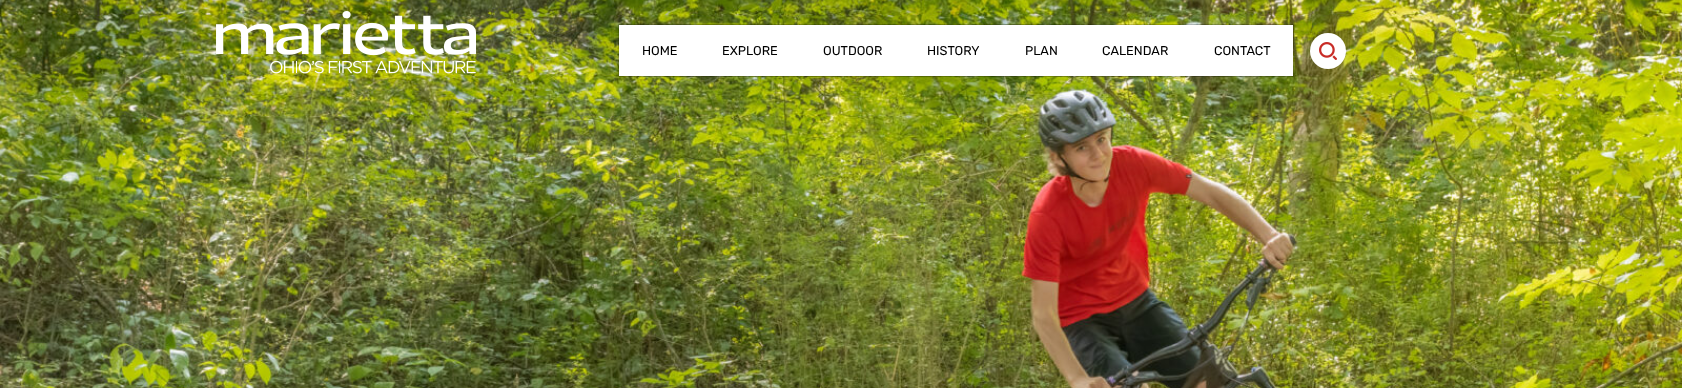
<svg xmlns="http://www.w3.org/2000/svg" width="1682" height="388">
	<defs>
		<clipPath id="clip1"><rect x="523" y="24" width="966" height="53" /></clipPath>
	</defs>
	<rect width="100%" height="100%" fill="#FFFFFF" />
	<image x="0" y="0" width="1682" height="388" href="assets/img1.png" />
	<image x="216" y="11" width="260" height="63" href="assets/img2.png" />
	<g clip-path="url(#clip1)">
		<rect x="618" y="40" width="676" height="53" fill="#000000" fill-opacity="0.18" filter="blur(24px)" />
	</g>
	<rect x="618.5" y="24.5" width="675" height="52" fill="none" stroke="#000000" stroke-opacity="0.15" />
	<rect x="619" y="25" width="674" height="51" fill="#FFFFFF" />
	<g font-family="Rubik" font-size="12.75" fill="#000000">
		<text x="642" y="55">HOME</text>
		<text x="722" y="55">EXPLORE</text>
		<text x="823" y="55">OUTDOOR</text>
		<text x="927" y="55">HISTORY</text>
		<text x="1025" y="55">PLAN</text>
		<text x="1102" y="55">CALENDAR</text>
		<text x="1214" y="55">CONTACT</text>
	</g>
	<circle cx="1328" cy="51" r="18" fill="#FFFFFF" />
	<image x="1319" y="42" width="18" height="18" href="assets/img3.png" />
</svg>
